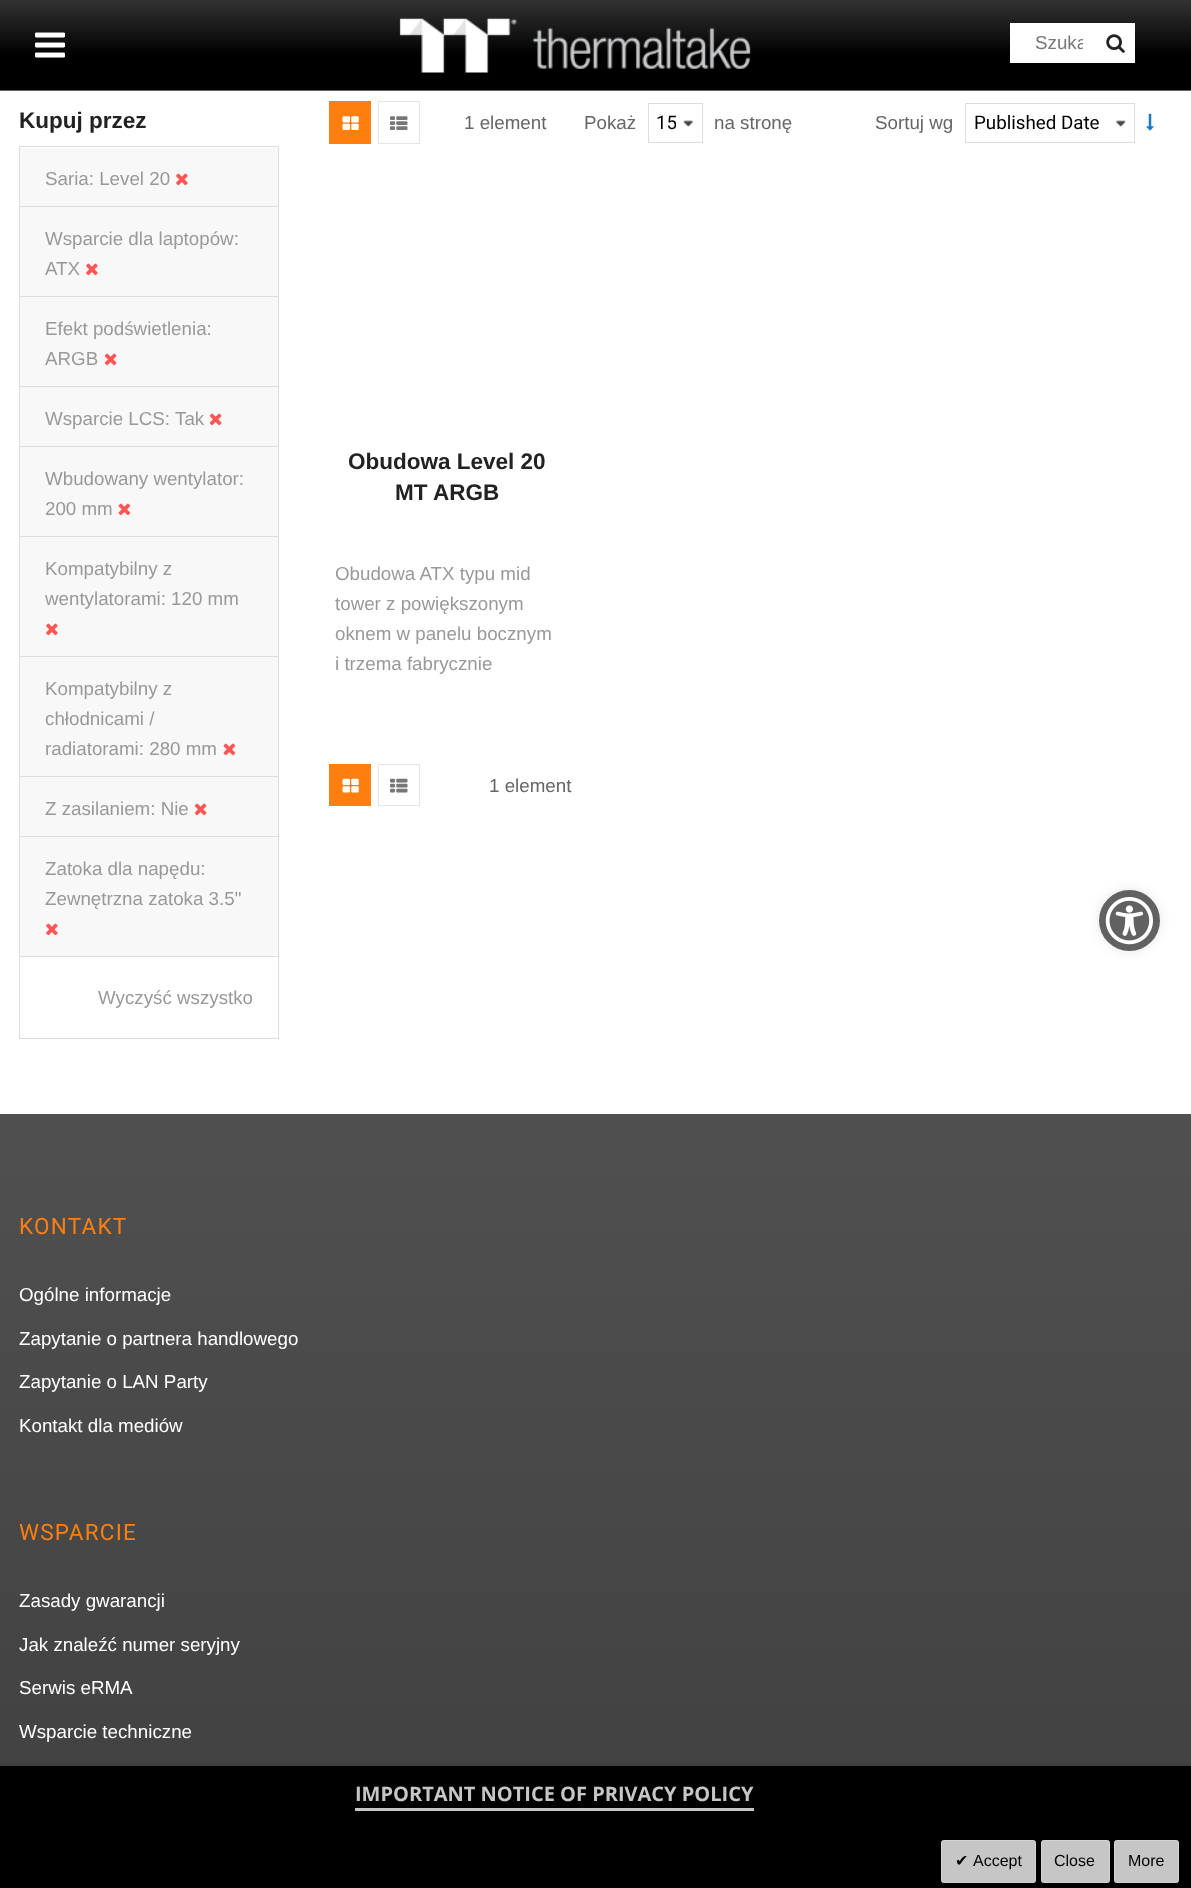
<svg xmlns="http://www.w3.org/2000/svg" width="1191" height="1888">
	<defs>
		<linearGradient id="g1" gradientUnits="userSpaceOnUse" x1="596" y1="0" x2="596" y2="90"><stop offset="0" stop-color="#333333" /><stop offset="0.61" stop-color="#000000" /></linearGradient>
		<clipPath id="clip1"><rect x="1035" y="33" width="48" height="21" /></clipPath>
		<clipPath id="clip2"><rect x="655" y="104" width="21" height="37" /></clipPath>
		<linearGradient id="g2" gradientUnits="userSpaceOnUse" x1="596" y1="1114" x2="596" y2="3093"><stop offset="0" stop-color="#505050" /><stop offset="1" stop-color="#262626" /></linearGradient>
	</defs>
	<rect width="100%" height="100%" fill="#FFFFFF" />
	<rect x="0" y="0" width="1191" height="90" fill="url(#g1)" />
	<rect x="0" y="90" width="1191" height="1" fill="#5F5F5F" />
	<image x="35" y="32" width="30" height="26" href="assets/img1.png" />
	<image x="399" y="18" width="352" height="55" href="assets/img2.png" />
	<rect x="1010" y="23" width="125" height="40" fill="#FFFFFF" />
	<g clip-path="url(#clip1)">
		<text x="1035" y="49" font-family="Liberation Sans" font-size="18.75" fill="#777777">Szuka</text>
	</g>
	<image x="1106" y="34" width="19" height="19" href="assets/img3.png" />
	<text x="19" y="128" font-family="Liberation Sans" font-size="22.5" font-weight="700" fill="#222222">Kupuj przez</text>
	<rect x="19" y="146" width="260" height="1" fill="#DDDDDD" />
	<rect x="278" y="146" width="1" height="810" fill="#DDDDDD" />
	<rect x="19" y="146" width="1" height="810" fill="#DDDDDD" />
	<rect x="20" y="148" width="258" height="808" fill="#F8F8F8" />
	<rect x="20" y="206" width="258" height="1" fill="#DDDDDD" />
	<text x="45" y="185" font-family="Liberation Sans" font-size="18.75" fill="#999999">Saria: Level 20</text>
	<image x="176" y="173" width="12" height="13" href="assets/img4.png" />
	<rect x="20" y="296" width="258" height="1" fill="#DDDDDD" />
	<g font-family="Liberation Sans" font-size="18.75" fill="#999999">
		<text x="45" y="245">Wsparcie dla laptopów:</text>
		<text x="45" y="275">ATX</text>
	</g>
	<image x="86" y="263" width="12" height="13" href="assets/img4.png" />
	<rect x="20" y="386" width="258" height="1" fill="#DDDDDD" />
	<g font-family="Liberation Sans" font-size="18.75" fill="#999999">
		<text x="45" y="335">Efekt podświetlenia:</text>
		<text x="45" y="365">ARGB</text>
	</g>
	<image x="104" y="353" width="13" height="13" href="assets/img5.png" />
	<rect x="20" y="446" width="258" height="1" fill="#DDDDDD" />
	<g font-family="Liberation Sans" font-size="18.75" fill="#999999">
		<text x="45" y="425">Wsparcie LCS:</text>
		<text x="175" y="425">Tak</text>
	</g>
	<image x="209" y="413" width="13" height="13" href="assets/img5.png" />
	<rect x="20" y="536" width="258" height="1" fill="#DDDDDD" />
	<g font-family="Liberation Sans" font-size="18.75" fill="#999999">
		<text x="45" y="485">Wbudowany wentylator:</text>
		<text x="45" y="515">200 mm</text>
	</g>
	<image x="118" y="503" width="13" height="13" href="assets/img6.png" />
	<rect x="20" y="656" width="258" height="1" fill="#DDDDDD" />
	<g font-family="Liberation Sans" font-size="18.75" fill="#999999">
		<text x="45" y="575">Kompatybilny z</text>
		<text x="45" y="605">wentylatorami: 120 mm</text>
	</g>
	<image x="46" y="623" width="12" height="13" href="assets/img4.png" />
	<rect x="20" y="776" width="258" height="1" fill="#DDDDDD" />
	<g font-family="Liberation Sans" font-size="18.75" fill="#999999">
		<text x="45" y="695">Kompatybilny z</text>
		<text x="45" y="725">chłodnicami /</text>
		<text x="45" y="755">radiatorami: 280 mm</text>
	</g>
	<image x="223" y="743" width="13" height="13" href="assets/img6.png" />
	<rect x="20" y="836" width="258" height="1" fill="#DDDDDD" />
	<text x="45" y="815" font-family="Liberation Sans" font-size="18.75" fill="#999999">Z zasilaniem: Nie</text>
	<image x="194" y="803" width="13" height="13" href="assets/img5.png" />
	<g font-family="Liberation Sans" font-size="18.75" fill="#999999">
		<text x="45" y="875">Zatoka dla napędu:</text>
		<text x="45" y="905">Zewnętrzna zatoka 3.5"</text>
	</g>
	<image x="46" y="923" width="12" height="13" href="assets/img4.png" />
	<rect x="19.5" y="956.5" width="259" height="82" fill="none" stroke="#DDDDDD" />
	<text x="98" y="1004" font-family="Liberation Sans" font-size="18.75" fill="#999999">Wyczyść wszystko</text>
	<rect x="329" y="101" width="42" height="43" fill="#FF7E10" />
	<image x="342" y="116" width="17" height="14" href="assets/img7.png" />
	<rect x="378.5" y="101.5" width="41" height="42" fill="none" stroke="#E5E5E5" />
	<image x="390" y="116" width="18" height="14" href="assets/img8.png" />
	<g font-family="Liberation Sans" font-size="18.75" fill="#666666">
		<text x="464" y="129">1 element</text>
		<text x="584" y="129">Pokaż</text>
	</g>
	<image x="683" y="120" width="11" height="7" href="assets/img9.png" />
	<rect x="648.5" y="103.5" width="54" height="39" fill="none" stroke="#DDDDDD" />
	<g clip-path="url(#clip2)">
		<text x="656" y="129" font-family="Roboto" font-size="18.75" fill="#000000">15</text>
	</g>
	<g font-family="Liberation Sans" font-size="18.75" fill="#666666">
		<text x="714" y="129">na stronę</text>
		<text x="875" y="129">Sortuj wg</text>
	</g>
	<image x="1116" y="120" width="10" height="7" href="assets/img10.png" />
	<rect x="965.5" y="103.5" width="169" height="39" fill="none" stroke="#DDDDDD" />
	<text x="974" y="129" font-family="Roboto" font-size="18.75" fill="#000000">Published Date</text>
	<image x="1146" y="113" width="8" height="18" href="assets/img11.png" />
	<g font-family="Liberation Sans" font-size="22.5" font-weight="700" fill="#222222">
		<text x="348" y="469">Obudowa Level 20</text>
		<text x="395" y="500">MT ARGB</text>
	</g>
	<g font-family="Liberation Sans" font-size="18.75" fill="#999999">
		<text x="335" y="580">Obudowa ATX typu mid</text>
		<text x="335" y="610">tower z powiększonym</text>
		<text x="335" y="640">oknem w panelu bocznym</text>
		<text x="335" y="670">i trzema fabrycznie</text>
	</g>
	<rect x="329" y="764" width="42" height="42" fill="#FF7E10" />
	<image x="342" y="778" width="17" height="15" href="assets/img12.png" />
	<rect x="378.5" y="764.5" width="41" height="41" fill="none" stroke="#E5E5E5" />
	<image x="390" y="778" width="18" height="15" href="assets/img13.png" />
	<text x="489" y="792" font-family="Liberation Sans" font-size="18.75" fill="#666666">1 element</text>
	<rect x="0" y="1114" width="1191" height="652" fill="url(#g2)" />
	<text x="19" y="1234" font-family="Roboto" font-size="22.5" letter-spacing="1.25" fill="#FF7E10">KONTAKT</text>
	<g font-family="Liberation Sans" font-size="18.75" fill="#FFFFFF">
		<text x="19" y="1301">Ogólne informacje</text>
		<text x="19" y="1345">Zapytanie o partnera handlowego</text>
		<text x="19" y="1388">Zapytanie o LAN Party</text>
		<text x="19" y="1432">Kontakt dla mediów</text>
	</g>
	<text x="19" y="1540" font-family="Roboto" font-size="22.5" letter-spacing="1.25" fill="#FF7E10">WSPARCIE</text>
	<g font-family="Liberation Sans" font-size="18.75" fill="#FFFFFF">
		<text x="19" y="1607">Zasady gwarancji</text>
		<text x="19" y="1651">Jak znaleźć numer seryjny</text>
		<text x="19" y="1694">Serwis eRMA</text>
		<text x="19" y="1738">Wsparcie techniczne</text>
	</g>
	<rect x="0" y="1769" width="1191" height="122" fill="#000000" fill-opacity="0.47" filter="blur(3px)" />
	<rect x="0" y="1766" width="1191" height="122" fill="#000000" />
	<text x="355" y="1801" font-family="Open Sans" font-size="20" font-weight="700" fill="#C6C6C6">IMPORTANT NOTICE OF PRIVACY POLICY</text>
	<rect x="355" y="1808" width="399" height="3" fill="#C6C6C6" />
	<rect x="941.5" y="1840.5" width="94" height="42" rx="2" fill="#C6C6C6" stroke="#D4D4D4" />
	<text x="955" y="1866" font-family="DejaVu Sans" font-size="16" fill="#000000">✔</text>
	<text x="973" y="1866" font-family="Liberation Sans" font-size="16" fill="#000000">Accept</text>
	<rect x="1041.5" y="1840.5" width="68" height="42" rx="2" fill="#C6C6C6" stroke="#D4D4D4" />
	<text x="1054" y="1866" font-family="Liberation Sans" font-size="16" fill="#000000">Close</text>
	<rect x="1114.5" y="1840.5" width="64" height="42" rx="2" fill="#C6C6C6" stroke="#D4D4D4" />
	<text x="1128" y="1866" font-family="Liberation Sans" font-size="16" fill="#000000">More</text>
	<rect x="1099" y="890" width="61" height="61" rx="30.5" fill="#000000" fill-opacity="0.1" filter="blur(6px)" />
	<circle cx="1129.5" cy="920.5" r="30.5" fill="#616161" />
	<image x="1105" y="897" width="48" height="48" href="assets/img14.png" />
</svg>
